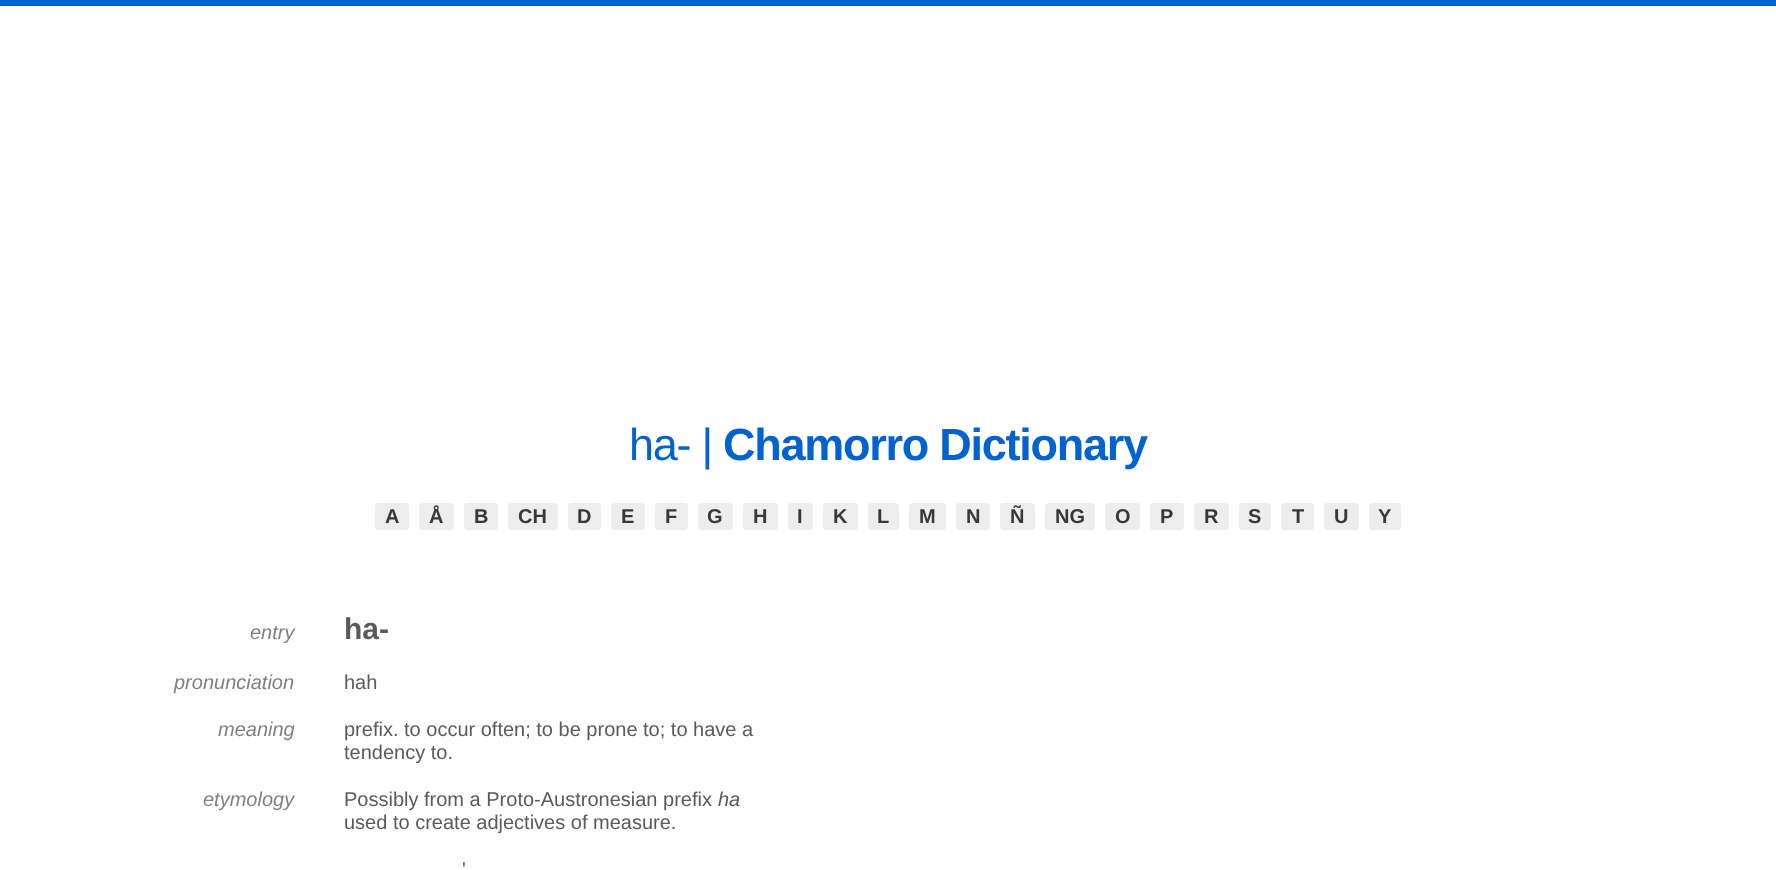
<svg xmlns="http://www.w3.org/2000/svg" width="1776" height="870">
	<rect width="100%" height="100%" fill="#FFFFFF" />
	<rect x="0" y="0" width="1776" height="6" fill="#0062CF" />
	<text x="629" y="460" font-family="Liberation Sans" font-size="45" letter-spacing="-1.25" fill="#0062CF">ha- |</text>
	<text x="723" y="460" font-family="Liberation Sans" font-size="45" font-weight="700" letter-spacing="-1.25" fill="#0062CF">Chamorro Dictionary</text>
	<rect x="375" y="503" width="34" height="27" rx="4" fill="#EDEDED" />
	<text x="385" y="523" font-family="Liberation Sans" font-size="20" font-weight="700" fill="#383838">A</text>
	<rect x="419" y="503" width="35" height="27" rx="4" fill="#EDEDED" />
	<text x="429" y="523" font-family="Liberation Sans" font-size="20" font-weight="700" fill="#383838">Å</text>
	<rect x="464" y="503" width="34" height="27" rx="4" fill="#EDEDED" />
	<text x="474" y="523" font-family="Liberation Sans" font-size="20" font-weight="700" fill="#383838">B</text>
	<rect x="508" y="503" width="50" height="27" rx="4" fill="#EDEDED" />
	<text x="518" y="523" font-family="Liberation Sans" font-size="20" font-weight="700" fill="#383838">CH</text>
	<rect x="568" y="503" width="33" height="27" rx="4" fill="#EDEDED" />
	<text x="577" y="523" font-family="Liberation Sans" font-size="20" font-weight="700" fill="#383838">D</text>
	<rect x="611" y="503" width="34" height="27" rx="4" fill="#EDEDED" />
	<text x="621" y="523" font-family="Liberation Sans" font-size="20" font-weight="700" fill="#383838">E</text>
	<rect x="655" y="503" width="33" height="27" rx="4" fill="#EDEDED" />
	<text x="665" y="523" font-family="Liberation Sans" font-size="20" font-weight="700" fill="#383838">F</text>
	<rect x="698" y="503" width="35" height="27" rx="4" fill="#EDEDED" />
	<text x="707" y="523" font-family="Liberation Sans" font-size="20" font-weight="700" fill="#383838">G</text>
	<rect x="743" y="503" width="35" height="27" rx="4" fill="#EDEDED" />
	<text x="753" y="523" font-family="Liberation Sans" font-size="20" font-weight="700" fill="#383838">H</text>
	<rect x="788" y="503" width="25" height="27" rx="4" fill="#EDEDED" />
	<text x="797" y="523" font-family="Liberation Sans" font-size="20" font-weight="700" fill="#383838">I</text>
	<rect x="823" y="503" width="35" height="27" rx="4" fill="#EDEDED" />
	<text x="833" y="523" font-family="Liberation Sans" font-size="20" font-weight="700" fill="#383838">K</text>
	<rect x="868" y="503" width="31" height="27" rx="4" fill="#EDEDED" />
	<text x="877" y="523" font-family="Liberation Sans" font-size="20" font-weight="700" fill="#383838">L</text>
	<rect x="909" y="503" width="37" height="27" rx="4" fill="#EDEDED" />
	<text x="919" y="523" font-family="Liberation Sans" font-size="20" font-weight="700" fill="#383838">M</text>
	<rect x="956" y="503" width="34" height="27" rx="4" fill="#EDEDED" />
	<text x="966" y="523" font-family="Liberation Sans" font-size="20" font-weight="700" fill="#383838">N</text>
	<rect x="1000" y="503" width="35" height="27" rx="4" fill="#EDEDED" />
	<text x="1010" y="523" font-family="Liberation Sans" font-size="20" font-weight="700" fill="#383838">Ñ</text>
	<rect x="1045" y="503" width="50" height="27" rx="4" fill="#EDEDED" />
	<text x="1055" y="523" font-family="Liberation Sans" font-size="20" font-weight="700" fill="#383838">NG</text>
	<rect x="1105" y="503" width="35" height="27" rx="4" fill="#EDEDED" />
	<text x="1115" y="523" font-family="Liberation Sans" font-size="20" font-weight="700" fill="#383838">O</text>
	<rect x="1150" y="503" width="34" height="27" rx="4" fill="#EDEDED" />
	<text x="1160" y="523" font-family="Liberation Sans" font-size="20" font-weight="700" fill="#383838">P</text>
	<rect x="1194" y="503" width="35" height="27" rx="4" fill="#EDEDED" />
	<text x="1204" y="523" font-family="Liberation Sans" font-size="20" font-weight="700" fill="#383838">R</text>
	<rect x="1239" y="503" width="32" height="27" rx="4" fill="#EDEDED" />
	<text x="1248" y="523" font-family="Liberation Sans" font-size="20" font-weight="700" fill="#383838">S</text>
	<rect x="1281" y="503" width="33" height="27" rx="4" fill="#EDEDED" />
	<text x="1292" y="523" font-family="Liberation Sans" font-size="20" font-weight="700" fill="#383838">T</text>
	<rect x="1324" y="503" width="35" height="27" rx="4" fill="#EDEDED" />
	<text x="1334" y="523" font-family="Liberation Sans" font-size="20" font-weight="700" fill="#383838">U</text>
	<rect x="1369" y="503" width="32" height="27" rx="4" fill="#EDEDED" />
	<text x="1378" y="523" font-family="Liberation Sans" font-size="20" font-weight="700" fill="#383838">Y</text>
	<text x="250" y="639" font-family="Liberation Sans" font-size="20" font-style="italic" fill="#808080">entry</text>
	<text x="344" y="639" font-family="Liberation Sans" font-size="30" font-weight="700" fill="#5A5A5A">ha-</text>
	<text x="174" y="689" font-family="Liberation Sans" font-size="20" font-style="italic" fill="#808080">pronunciation</text>
	<text x="344" y="689" font-family="Liberation Sans" font-size="20" fill="#5A5A5A">hah</text>
	<text x="218" y="736" font-family="Liberation Sans" font-size="20" font-style="italic" fill="#808080">meaning</text>
	<g font-family="Liberation Sans" font-size="20" fill="#5A5A5A">
		<text x="344" y="736">prefix. to occur often; to be prone to; to have a</text>
		<text x="344" y="759">tendency to.</text>
	</g>
	<text x="203" y="806" font-family="Liberation Sans" font-size="20" font-style="italic" fill="#808080">etymology</text>
	<text x="344" y="806" font-family="Liberation Sans" font-size="20" fill="#5A5A5A">Possibly from a Proto-Austronesian prefix</text>
	<text x="718" y="806" font-family="Liberation Sans" font-size="20" font-style="italic" fill="#5A5A5A">ha</text>
	<g font-family="Liberation Sans" font-size="20" fill="#5A5A5A">
		<text x="344" y="829">used to create adjectives of measure.</text>
		<text x="462" y="876">'</text>
	</g>
</svg>
